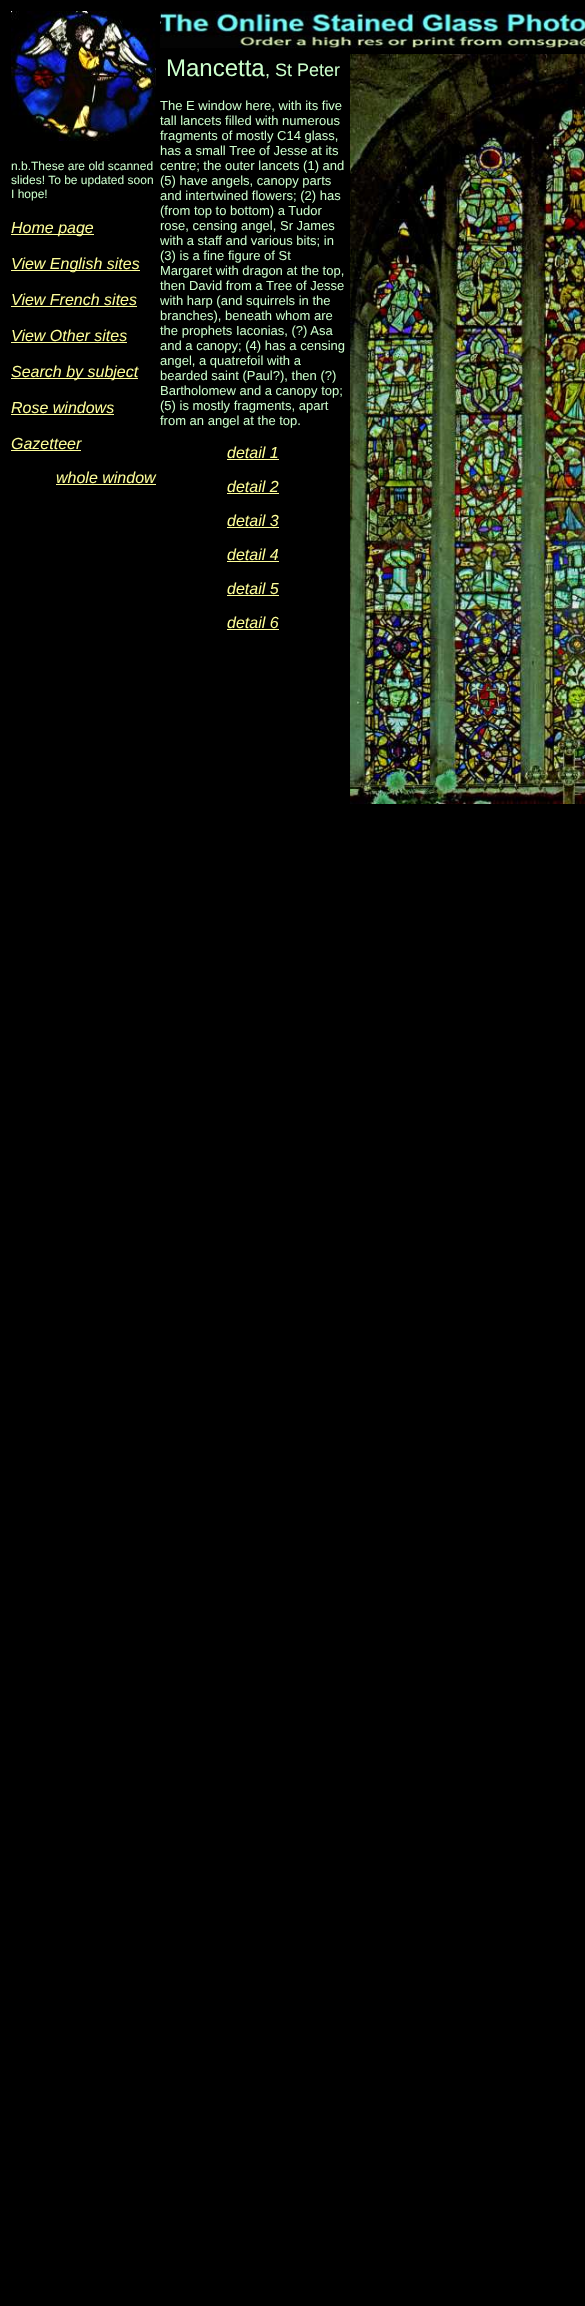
<svg xmlns="http://www.w3.org/2000/svg" width="585" height="2306">
	<rect width="100%" height="100%" fill="#000000" />
	<image x="160" y="11" width="425" height="37" href="assets/img1.png" />
	<image x="11" y="11" width="145" height="130" href="assets/img2.png" />
	<g font-family="Liberation Sans" font-size="12" fill="#CCFFCC">
		<text x="11" y="170">n.b.These are old scanned</text>
		<text x="11" y="184">slides! To be updated soon</text>
		<text x="11" y="198">I hope!</text>
	</g>
	<rect x="11" y="234" width="83" height="1" fill="#FFFF99" />
	<text x="11" y="233" font-family="Liberation Sans" font-size="16" font-style="italic" fill="#FFFF99">Home page</text>
	<rect x="11" y="270" width="129" height="1" fill="#FFFF99" />
	<g font-family="Liberation Sans" font-size="16" font-style="italic" fill="#FFFF99">
		<text x="11" y="269">View English sites</text>
		<text x="11" y="305">View French sites</text>
	</g>
	<rect x="11" y="306" width="126" height="1" fill="#FFFF99" />
	<text x="11" y="341" font-family="Liberation Sans" font-size="16" font-style="italic" fill="#FFFF99">View Other sites</text>
	<rect x="11" y="342" width="116" height="1" fill="#FFFF99" />
	<rect x="11" y="378" width="127" height="1" fill="#FFFF99" />
	<g font-family="Liberation Sans" font-size="16" font-style="italic" fill="#FFFF99">
		<text x="11" y="377">Search by subject</text>
		<text x="11" y="413">Rose windows</text>
	</g>
	<rect x="11" y="414" width="103" height="1" fill="#FFFF99" />
	<text x="11" y="449" font-family="Liberation Sans" font-size="16" font-style="italic" fill="#FFFF99">Gazetteer</text>
	<rect x="11" y="450" width="70" height="1" fill="#FFFF99" />
	<text x="56" y="483" font-family="Liberation Sans" font-size="16" font-style="italic" fill="#FFFF99">whole window</text>
	<rect x="56" y="484" width="100" height="1" fill="#FFFF99" />
	<text x="166" y="76" font-family="Liberation Sans" font-size="24" fill="#CCFFCC">Mancetta</text>
	<text x="265" y="76" font-family="Liberation Sans" font-size="18" fill="#CCFFCC">, St Peter</text>
	<g font-family="Liberation Sans" font-size="13" fill="#CCFFCC">
		<text x="160" y="110">The E window here, with its five</text>
		<text x="160" y="125">tall lancets filled with numerous</text>
		<text x="160" y="140">fragments of mostly C14 glass,</text>
		<text x="160" y="155">has a small Tree of Jesse at its</text>
		<text x="160" y="170">centre; the outer lancets (1) and</text>
		<text x="160" y="185">(5) have angels, canopy parts</text>
		<text x="160" y="200">and intertwined flowers; (2) has</text>
		<text x="160" y="215">(from top to bottom) a Tudor</text>
		<text x="160" y="230">rose, censing angel, Sr James</text>
		<text x="160" y="245">with a staff and various bits; in</text>
		<text x="160" y="260">(3) is a fine figure of St</text>
		<text x="160" y="275">Margaret with dragon at the top,</text>
		<text x="160" y="290">then David from a Tree of Jesse</text>
		<text x="160" y="305">with harp (and squirrels in the</text>
		<text x="160" y="320">branches), beneath whom are</text>
		<text x="160" y="335">the prophets Iaconias, (?) Asa</text>
		<text x="160" y="350">and a canopy; (4) has a censing</text>
		<text x="160" y="365">angel, a quatrefoil with a</text>
		<text x="160" y="380">bearded saint (Paul?), then (?)</text>
		<text x="160" y="395">Bartholomew and a canopy top;</text>
		<text x="160" y="410">(5) is mostly fragments, apart</text>
		<text x="160" y="425">from an angel at the top.</text>
	</g>
	<text x="227" y="458" font-family="Liberation Sans" font-size="16" font-style="italic" fill="#FFFF99">detail 1</text>
	<rect x="227" y="459" width="52" height="1" fill="#FFFF99" />
	<text x="227" y="492" font-family="Liberation Sans" font-size="16" font-style="italic" fill="#FFFF99">detail 2</text>
	<rect x="227" y="493" width="52" height="1" fill="#FFFF99" />
	<text x="227" y="526" font-family="Liberation Sans" font-size="16" font-style="italic" fill="#FFFF99">detail 3</text>
	<rect x="227" y="527" width="52" height="1" fill="#FFFF99" />
	<text x="227" y="560" font-family="Liberation Sans" font-size="16" font-style="italic" fill="#FFFF99">detail 4</text>
	<rect x="227" y="561" width="52" height="1" fill="#FFFF99" />
	<text x="227" y="594" font-family="Liberation Sans" font-size="16" font-style="italic" fill="#FFFF99">detail 5</text>
	<rect x="227" y="595" width="52" height="1" fill="#FFFF99" />
	<text x="227" y="628" font-family="Liberation Sans" font-size="16" font-style="italic" fill="#FFFF99">detail 6</text>
	<rect x="227" y="629" width="52" height="1" fill="#FFFF99" />
	<image x="350" y="54" width="235" height="750" href="assets/img3.png" />
</svg>
